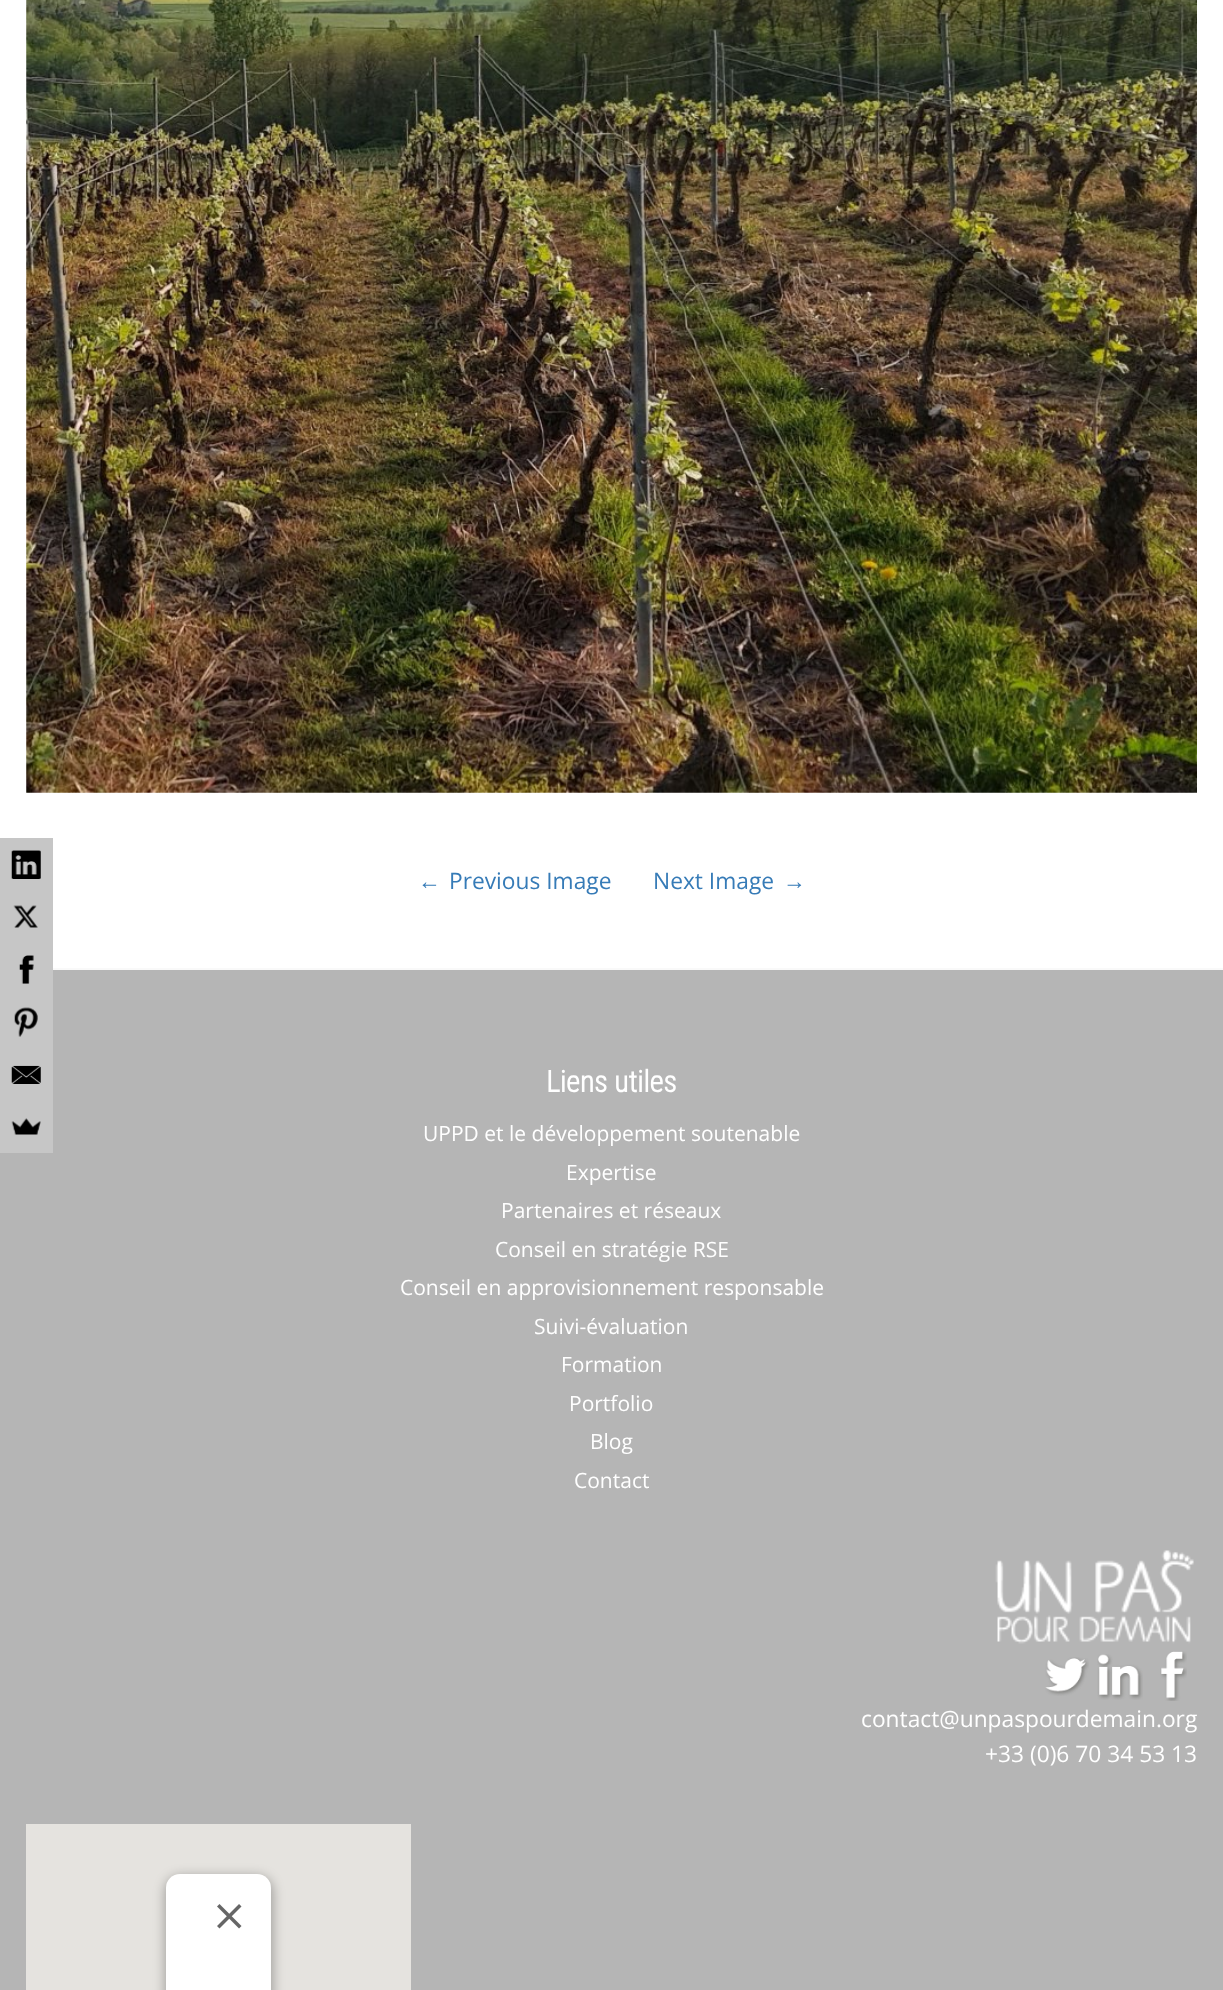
<svg xmlns="http://www.w3.org/2000/svg" width="1223" height="1990">
	<rect width="100%" height="100%" fill="#FFFFFF" />
	<rect x="0" y="970" width="1223" height="1020" fill="#B5B5B5" />
	<rect x="0" y="838" width="53" height="315" fill="#C6C6C6" />
	<image x="11" y="850" width="30" height="29" href="assets/img1.png" />
	<image x="13" y="905" width="25" height="23" href="assets/img2.png" />
	<image x="19" y="955" width="15" height="29" href="assets/img3.png" />
	<image x="14" y="1007" width="24" height="30" href="assets/img4.png" />
	<image x="11" y="1065" width="30" height="19" href="assets/img5.png" />
	<image x="11" y="1118" width="30" height="17" href="assets/img6.png" />
	<image x="26" y="0" width="1171" height="793" href="assets/img7.png" />
	<text x="418" y="889" font-family="Liberation Serif" font-size="22.75" fill="#367BB7">←</text>
	<g font-family="Open Sans" font-size="22.75" fill="#367BB7">
		<text x="449" y="889">Previous Image</text>
		<text x="653" y="889">Next Image</text>
	</g>
	<text x="783" y="889" font-family="Liberation Serif" font-size="22.75" fill="#367BB7">→</text>
	<rect x="53" y="968" width="1170" height="2" fill="#F9F9F9" />
	<text x="546" y="1092" font-family="Roboto Condensed" font-size="29.75" font-weight="700" fill="#FFFFFF">Liens utiles</text>
	<g font-family="Open Sans" font-size="21" fill="#FFFFFF">
		<text x="423" y="1141">UPPD et le développement soutenable</text>
		<text x="566" y="1180">Expertise</text>
		<text x="501" y="1218">Partenaires et réseaux</text>
		<text x="495" y="1257">Conseil en stratégie RSE</text>
		<text x="400" y="1295">Conseil en approvisionnement responsable</text>
		<text x="534" y="1334">Suivi-évaluation</text>
		<text x="561" y="1372">Formation</text>
		<text x="569" y="1411">Portfolio</text>
		<text x="590" y="1449">Blog</text>
		<text x="574" y="1488">Contact</text>
	</g>
	<image x="995" y="1550" width="199" height="94" href="assets/img8.png" />
	<image x="1045" y="1657" width="44" height="39" href="assets/img9.png" />
	<image x="1097" y="1654" width="46" height="46" href="assets/img10.png" />
	<image x="1160" y="1651" width="27" height="50" href="assets/img11.png" />
	<g font-family="Open Sans" font-size="22.75" fill="#FFFFFF">
		<text x="861" y="1727">contact@unpaspourdemain.org</text>
		<text x="985" y="1762">+33 (0)6 70 34 53 13</text>
	</g>
	<rect x="26" y="1824" width="385" height="166" fill="#E5E3DF" />
	<rect x="165" y="1876" width="108" height="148" rx="16" fill="#000000" fill-opacity="0.3" filter="blur(6px)" />
	<rect x="166" y="1874" width="105" height="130" rx="14" fill="#FFFFFF" />
	<image x="217" y="1904" width="25" height="25" href="assets/img12.png" />
</svg>
